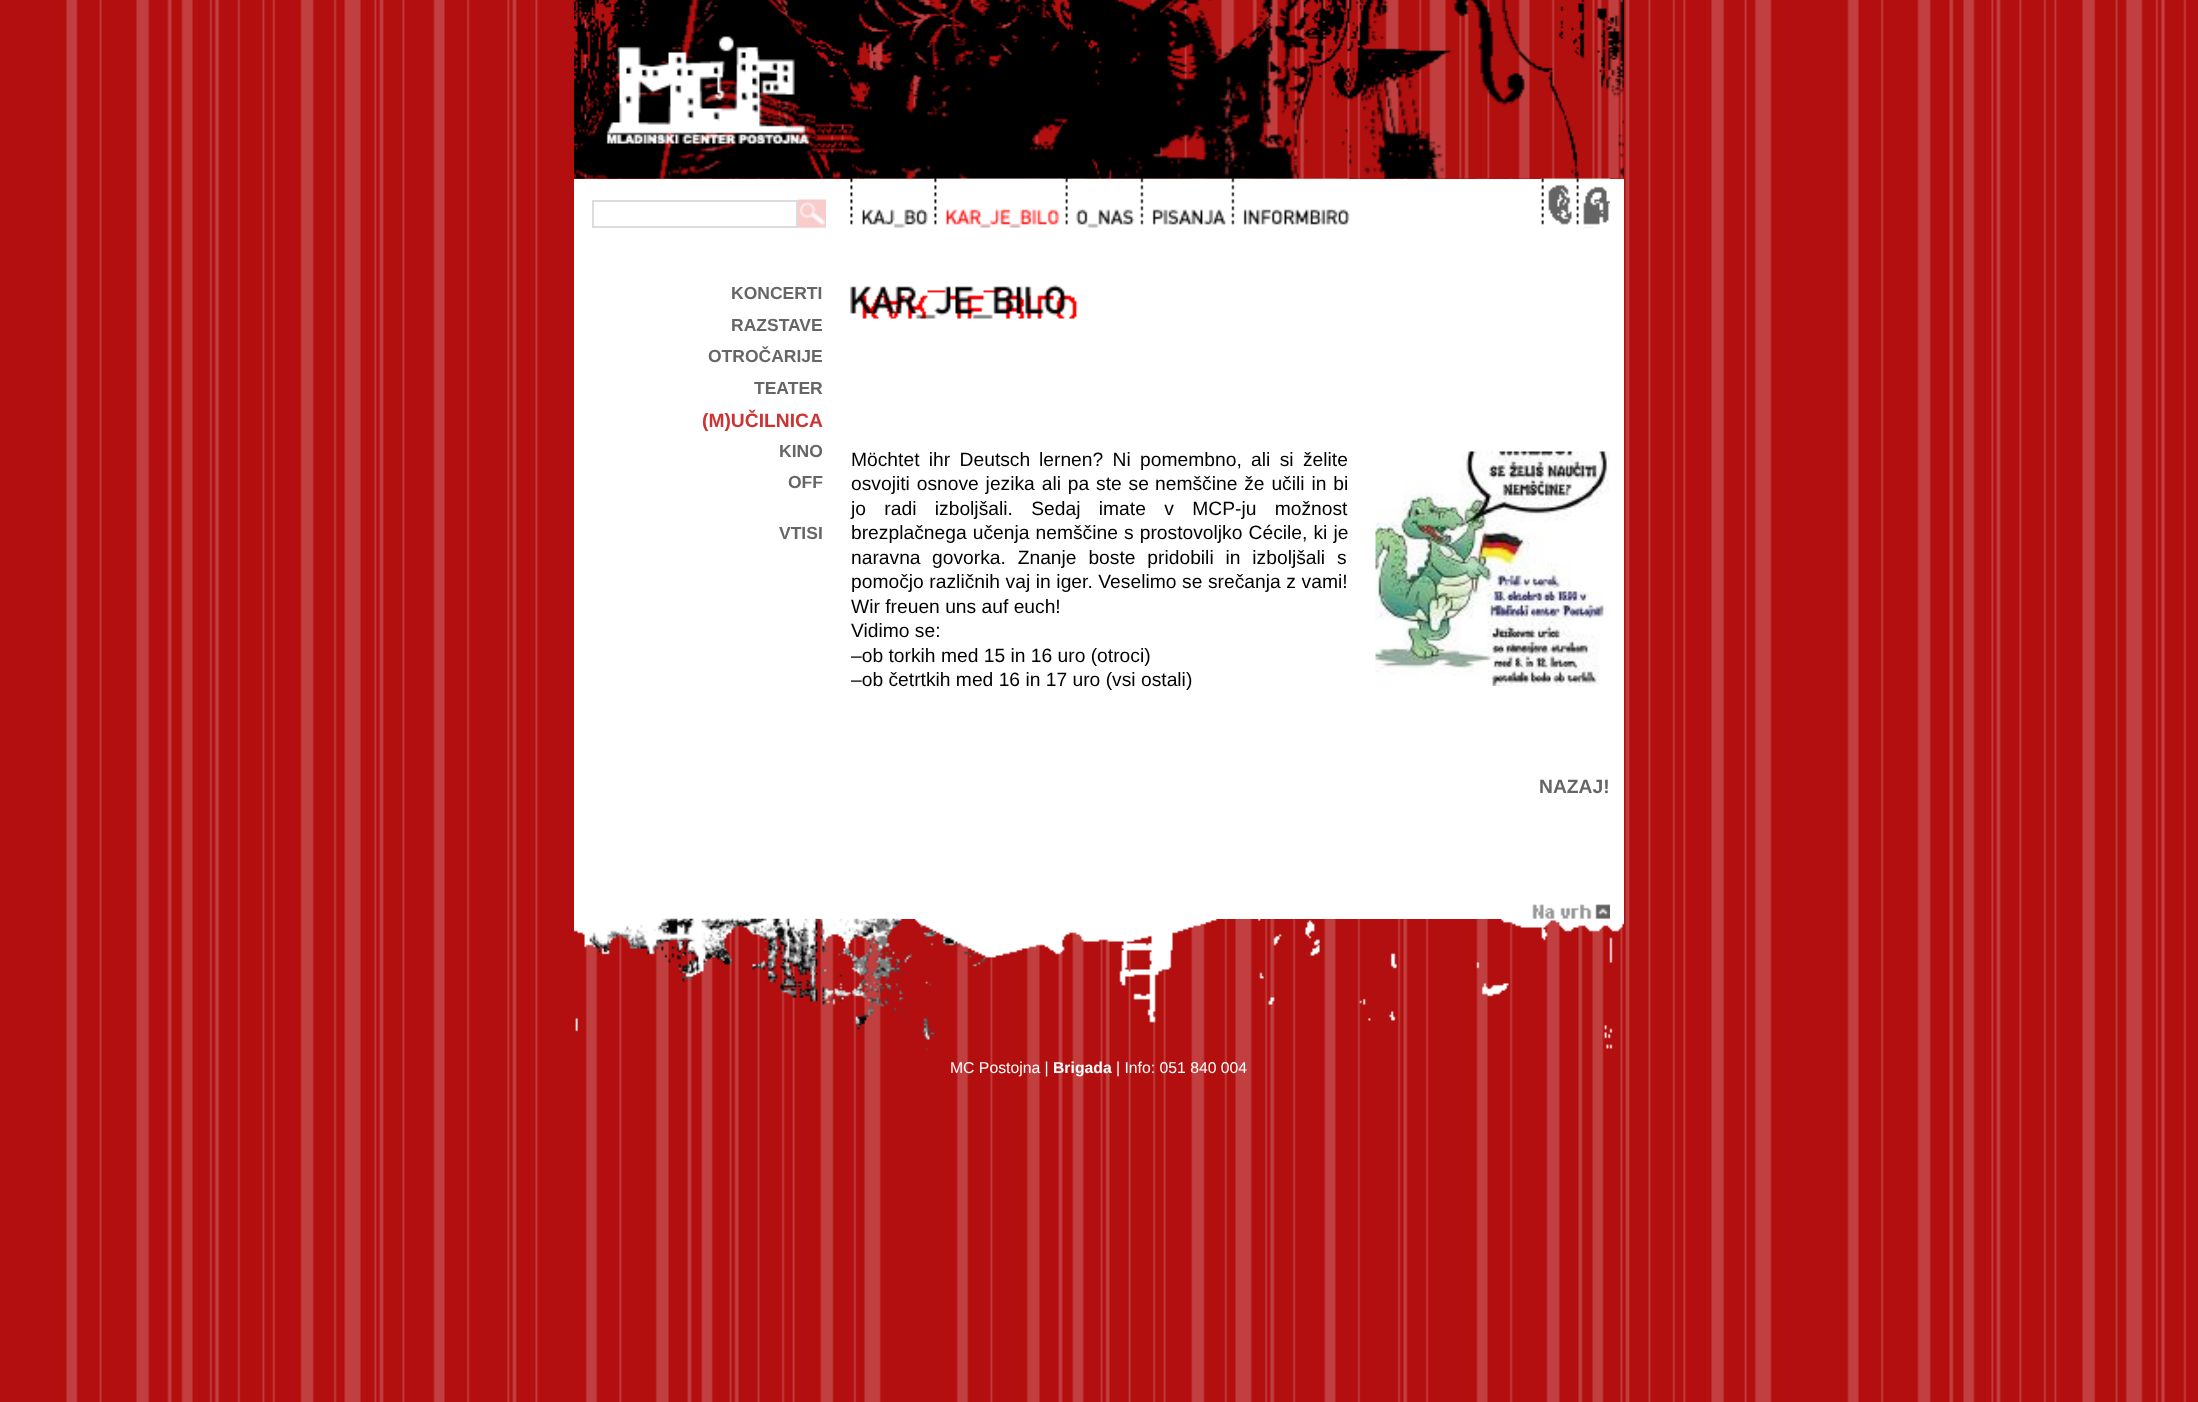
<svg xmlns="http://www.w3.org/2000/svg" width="2198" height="1402">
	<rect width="100%" height="100%" fill="#FFFFFF" />
	<image x="0" y="0" width="2198" height="1402" href="assets/img1.png" />
	<rect x="574" y="179" width="1050" height="712" fill="#FFFFFF" />
	<image x="850" y="178" width="500" height="50" href="assets/img4.png" />
	<image x="932" y="178" width="131" height="48" href="assets/img5.png" />
	<image x="1540" y="178" width="70" height="50" href="assets/img6.png" />
	<image x="1540" y="178" width="35" height="47" href="assets/img7.png" />
	<image x="1575" y="178" width="35" height="50" href="assets/img8.png" />
	<image x="574" y="0" width="1050" height="179" href="assets/img2.png" />
	<rect x="593" y="201" width="204" height="26" fill="none" stroke="#DEDBDE" stroke-width="2" />
	<rect x="798" y="227" width="28" height="1" fill="#EFEFEF" />
	<image x="798" y="199" width="28" height="29" href="assets/img3.png" />
	<g font-family="Liberation Sans" font-size="17.5" font-weight="700" fill="#666666">
		<text x="731" y="299">KONCERTI</text>
		<text x="731" y="331">RAZSTAVE</text>
		<text x="708" y="362">OTROČARIJE</text>
		<text x="754" y="394">TEATER</text>
	</g>
	<text x="702" y="427" font-family="Liberation Sans" font-size="19.25" font-weight="700" fill="#CC3333">(M)UČILNICA</text>
	<g font-family="Liberation Sans" font-size="17.5" font-weight="700" fill="#666666">
		<text x="779" y="457">KINO</text>
		<text x="788" y="488">OFF</text>
		<text x="779" y="539">VTISI</text>
	</g>
	<image x="850" y="284" width="227" height="35" href="assets/img9.png" />
	<g font-family="Liberation Sans" font-size="19.25" fill="#000000">
		<text x="851" y="466" word-spacing="4">Möchtet ihr Deutsch</text>
		<text x="1039" y="466" word-spacing="4">lernen? Ni pomembno, ali si želite</text>
		<text x="851" y="490" word-spacing="1.5">osvojiti osnove jezika ali pa ste se</text>
		<text x="1155" y="490" word-spacing="1.5">nemščine že učili in bi</text>
		<text x="851" y="515" word-spacing="13">jo radi izboljšali. Sedaj imate v MCP-ju možnost</text>
		<text x="851" y="539" word-spacing="0.75">brezplačnega učenja nemščine s prostovoljko Cécile, ki je</text>
		<text x="851" y="564">naravna</text>
		<text x="932" y="564" word-spacing="6.5">govorka. Znanje boste pridobili in izboljšali s</text>
		<text x="851" y="588" word-spacing="0.25">pomočjo različnih vaj in iger. Veselimo se srečanja z vami!</text>
		<text x="851" y="613">Wir freuen uns auf euch!</text>
		<text x="851" y="637">Vidimo se:</text>
		<text x="851" y="662">–ob torkih med 15 in 16 uro (otroci)</text>
		<text x="851" y="686">–ob četrtkih med 16 in 17 uro (vsi ostali)</text>
	</g>
	<image x="1375" y="451" width="235" height="235" href="assets/img10.png" />
	<text x="1539" y="793" font-family="Liberation Sans" font-size="19.25" font-weight="700" fill="#666666">NAZAJ!</text>
	<rect x="574" y="891" width="1050" height="28" fill="#FFFFFF" />
	<image x="1532" y="904" width="78" height="15" href="assets/img11.png" />
	<image x="574" y="918" width="1050" height="136" href="assets/img12.png" />
	<text x="950" y="1073" font-family="Liberation Sans" font-size="15.75" fill="#FFFFFF">MC Postojna |</text>
	<text x="1053" y="1073" font-family="Liberation Sans" font-size="15.75" font-weight="700" fill="#FFFFFF">Brigada</text>
	<text x="1116" y="1073" font-family="Liberation Sans" font-size="15.75" fill="#FFFFFF">| Info: 051 840 004</text>
</svg>
